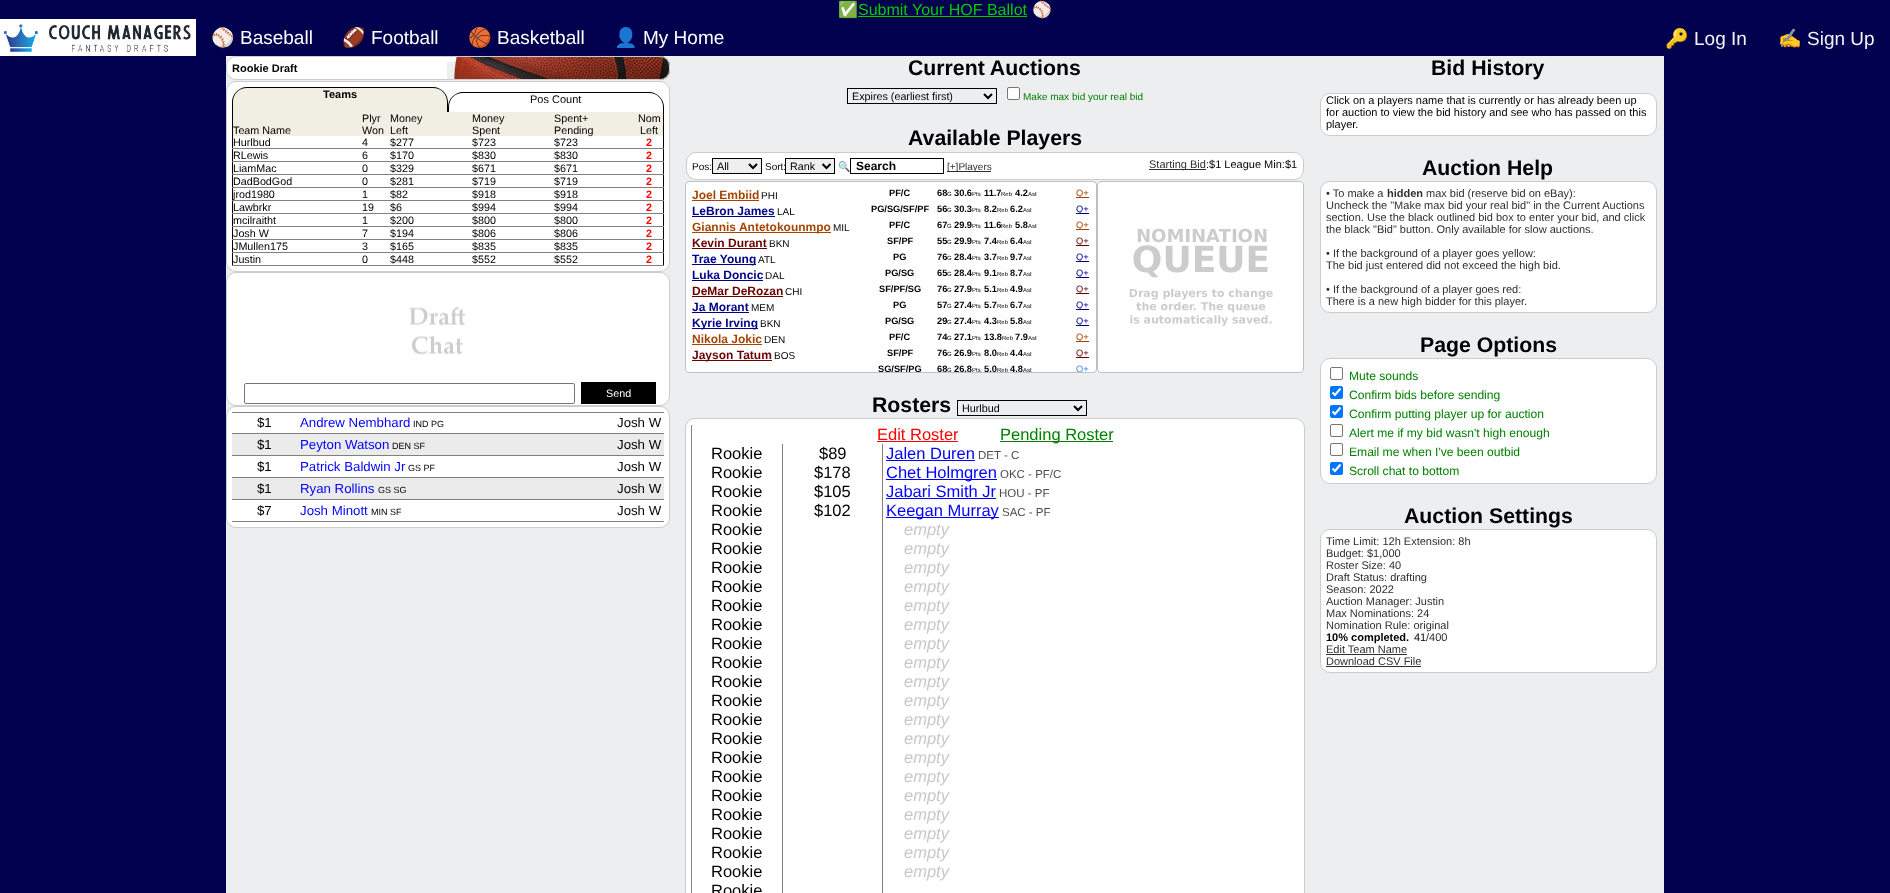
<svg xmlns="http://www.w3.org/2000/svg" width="1890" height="893">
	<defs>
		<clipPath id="clip1"><rect x="686" y="182" width="410" height="190" rx="3" /></clipPath>
	</defs>
	<rect width="100%" height="100%" fill="#00004F" />
	<text x="838" y="15" font-family="Noto Color Emoji" font-size="16" fill="#FFFF00">✅</text>
	<text x="858" y="15" font-family="Liberation Sans" font-size="16" fill="#00CC00">Submit Your HOF Ballot</text>
	<rect x="858" y="16" width="169" height="1" fill="#00CC00" />
	<text x="1032" y="15" font-family="Noto Color Emoji" font-size="16" fill="#FFFF00">⚾</text>
	<rect x="0" y="19" width="196" height="37" fill="#FFFFFF" />
	<image x="4" y="24" width="187" height="28" href="assets/img1.png" />
	<text x="211" y="44" font-family="Noto Color Emoji" font-size="19" fill="#FFFFFF">⚾</text>
	<text x="240" y="44" font-family="Liberation Sans" font-size="19" fill="#FFFFFF">Baseball</text>
	<text x="342" y="44" font-family="Noto Color Emoji" font-size="19" fill="#FFFFFF">🏈</text>
	<text x="371" y="44" font-family="Liberation Sans" font-size="19" fill="#FFFFFF">Football</text>
	<text x="468" y="44" font-family="Noto Color Emoji" font-size="19" fill="#FFFFFF">🏀</text>
	<text x="497" y="44" font-family="Liberation Sans" font-size="19" fill="#FFFFFF">Basketball</text>
	<text x="614" y="44" font-family="Noto Color Emoji" font-size="19" fill="#FFFFFF">👤</text>
	<text x="643" y="44" font-family="Liberation Sans" font-size="19" fill="#FFFFFF">My Home</text>
	<text x="1665" y="45" font-family="Noto Color Emoji" font-size="19" fill="#F2F2F2">🔑</text>
	<text x="1694" y="45" font-family="Liberation Sans" font-size="19" fill="#F2F2F2">Log In</text>
	<text x="1778" y="45" font-family="Noto Color Emoji" font-size="19" fill="#F2F2F2">✍</text>
	<text x="1807" y="45" font-family="Liberation Sans" font-size="19" fill="#F2F2F2">Sign Up</text>
	<rect x="226" y="56" width="1438" height="837" fill="#EDEEF0" />
	<rect x="226" y="56" width="444" height="24" rx="10" fill="#FFFFFF" />
	<image x="447" y="56" width="223" height="24" href="assets/img2.png" />
	<rect x="226.5" y="56.5" width="443" height="23" rx="9.5" fill="none" stroke="#CCCCCC" />
	<text x="232" y="72" font-family="Liberation Sans" font-size="11" font-weight="700" fill="#000000">Rookie Draft</text>
	<rect x="226.5" y="81.5" width="443" height="190" rx="9.5" fill="#FFFFFF" stroke="#CCCCCC" />
	<path d="M247 87H433C441.5 87 448 93.5 448 102V112H232V102C232 93.5 238.5 87 247 87Z" fill="#F1EFE4" />
	<path d="M247 87H433C441 87 448 94 448 102V112H232V102C232 94 239 87 247 87ZM247 88H433C441 88 447 94 447 102V112H233V102C233 94 239 88 247 88Z" fill="#000000" fill-rule="evenodd" />
	<text x="323" y="98" font-family="Liberation Sans" font-size="11" font-weight="700" fill="#000000">Teams</text>
	<path d="M463 92H649C657 92 664 99 664 107V112H448V107C448 99 455 92 463 92ZM463 93H649C657 93 663 99 663 107V112H449V107C449 99 455 93 463 93Z" fill="#000000" fill-rule="evenodd" />
	<text x="530" y="103" font-family="Liberation Sans" font-size="11" fill="#000000">Pos Count</text>
	<rect x="362" y="112" width="28" height="24" fill="#F1EEE4" />
	<text x="362" y="134" font-family="Liberation Sans" font-size="10.75" fill="#000000">Won</text>
	<rect x="233" y="112" width="129" height="24" fill="#F1EEE4" />
	<rect x="232" y="112" width="1" height="36" fill="#000000" />
	<g font-family="Liberation Sans" font-size="10.75" fill="#000000">
		<text x="233" y="134">Team Name</text>
		<text x="362" y="122">Plyr</text>
	</g>
	<rect x="390" y="112" width="273" height="24" fill="#F1EEE4" />
	<g font-family="Liberation Sans" font-size="10.75" fill="#000000">
		<text x="390" y="122">Money</text>
		<text x="390" y="134">Left</text>
		<text x="472" y="122">Money</text>
		<text x="472" y="134">Spent</text>
		<text x="554" y="122">Spent+</text>
		<text x="554" y="134">Pending</text>
	</g>
	<rect x="663" y="112" width="1" height="36" fill="#000000" />
	<g font-family="Liberation Sans" font-size="10.75" fill="#000000">
		<text x="638" y="122">Nom</text>
		<text x="640" y="134">Left</text>
	</g>
	<rect x="232" y="148" width="432" height="1" fill="#808080" />
	<g font-family="Liberation Sans" font-size="10.75" fill="#000000">
		<text x="233" y="146">Hurlbud</text>
		<text x="362" y="146">4</text>
		<text x="390" y="146">$277</text>
		<text x="472" y="146">$723</text>
		<text x="554" y="146">$723</text>
	</g>
	<text x="646" y="146" font-family="Liberation Sans" font-size="10.75" font-weight="700" fill="#FF0000">2</text>
	<rect x="232" y="161" width="432" height="1" fill="#808080" />
	<rect x="232" y="149" width="1" height="12" fill="#000000" />
	<g font-family="Liberation Sans" font-size="10.75" fill="#000000">
		<text x="233" y="159">RLewis</text>
		<text x="362" y="159">6</text>
		<text x="390" y="159">$170</text>
		<text x="472" y="159">$830</text>
		<text x="554" y="159">$830</text>
	</g>
	<rect x="663" y="149" width="1" height="12" fill="#000000" />
	<text x="646" y="159" font-family="Liberation Sans" font-size="10.75" font-weight="700" fill="#FF0000">2</text>
	<rect x="232" y="174" width="432" height="1" fill="#808080" />
	<rect x="232" y="162" width="1" height="12" fill="#000000" />
	<g font-family="Liberation Sans" font-size="10.75" fill="#000000">
		<text x="233" y="172">LiamMac</text>
		<text x="362" y="172">0</text>
		<text x="390" y="172">$329</text>
		<text x="472" y="172">$671</text>
		<text x="554" y="172">$671</text>
	</g>
	<rect x="663" y="162" width="1" height="12" fill="#000000" />
	<text x="646" y="172" font-family="Liberation Sans" font-size="10.75" font-weight="700" fill="#FF0000">2</text>
	<rect x="232" y="187" width="432" height="1" fill="#808080" />
	<rect x="232" y="175" width="1" height="12" fill="#000000" />
	<g font-family="Liberation Sans" font-size="10.75" fill="#000000">
		<text x="233" y="185">DadBodGod</text>
		<text x="362" y="185">0</text>
		<text x="390" y="185">$281</text>
		<text x="472" y="185">$719</text>
		<text x="554" y="185">$719</text>
	</g>
	<rect x="663" y="175" width="1" height="12" fill="#000000" />
	<text x="646" y="185" font-family="Liberation Sans" font-size="10.75" font-weight="700" fill="#FF0000">2</text>
	<rect x="232" y="200" width="432" height="1" fill="#808080" />
	<rect x="232" y="188" width="1" height="12" fill="#000000" />
	<g font-family="Liberation Sans" font-size="10.75" fill="#000000">
		<text x="233" y="198">jrod1980</text>
		<text x="362" y="198">1</text>
		<text x="390" y="198">$82</text>
		<text x="472" y="198">$918</text>
		<text x="554" y="198">$918</text>
	</g>
	<rect x="663" y="188" width="1" height="12" fill="#000000" />
	<text x="646" y="198" font-family="Liberation Sans" font-size="10.75" font-weight="700" fill="#FF0000">2</text>
	<rect x="232" y="213" width="432" height="1" fill="#808080" />
	<rect x="232" y="201" width="1" height="12" fill="#000000" />
	<g font-family="Liberation Sans" font-size="10.75" fill="#000000">
		<text x="233" y="211">Lawbrkr</text>
		<text x="362" y="211">19</text>
		<text x="390" y="211">$6</text>
		<text x="472" y="211">$994</text>
		<text x="554" y="211">$994</text>
	</g>
	<rect x="663" y="201" width="1" height="12" fill="#000000" />
	<text x="646" y="211" font-family="Liberation Sans" font-size="10.75" font-weight="700" fill="#FF0000">2</text>
	<rect x="232" y="226" width="432" height="1" fill="#808080" />
	<rect x="232" y="214" width="1" height="12" fill="#000000" />
	<g font-family="Liberation Sans" font-size="10.75" fill="#000000">
		<text x="233" y="224">mcilraitht</text>
		<text x="362" y="224">1</text>
		<text x="390" y="224">$200</text>
		<text x="472" y="224">$800</text>
		<text x="554" y="224">$800</text>
	</g>
	<rect x="663" y="214" width="1" height="12" fill="#000000" />
	<text x="646" y="224" font-family="Liberation Sans" font-size="10.75" font-weight="700" fill="#FF0000">2</text>
	<rect x="232" y="239" width="432" height="1" fill="#808080" />
	<rect x="232" y="227" width="1" height="12" fill="#000000" />
	<g font-family="Liberation Sans" font-size="10.75" fill="#000000">
		<text x="233" y="237">Josh W</text>
		<text x="362" y="237">7</text>
		<text x="390" y="237">$194</text>
		<text x="472" y="237">$806</text>
		<text x="554" y="237">$806</text>
	</g>
	<rect x="663" y="227" width="1" height="12" fill="#000000" />
	<text x="646" y="237" font-family="Liberation Sans" font-size="10.75" font-weight="700" fill="#FF0000">2</text>
	<rect x="232" y="252" width="432" height="1" fill="#808080" />
	<rect x="232" y="240" width="1" height="12" fill="#000000" />
	<g font-family="Liberation Sans" font-size="10.75" fill="#000000">
		<text x="233" y="250">JMullen175</text>
		<text x="362" y="250">3</text>
		<text x="390" y="250">$165</text>
		<text x="472" y="250">$835</text>
		<text x="554" y="250">$835</text>
	</g>
	<rect x="663" y="240" width="1" height="12" fill="#000000" />
	<text x="646" y="250" font-family="Liberation Sans" font-size="10.75" font-weight="700" fill="#FF0000">2</text>
	<rect x="232" y="265" width="432" height="1" fill="#808080" />
	<rect x="232" y="253" width="1" height="12" fill="#000000" />
	<g font-family="Liberation Sans" font-size="10.75" fill="#000000">
		<text x="233" y="263">Justin</text>
		<text x="362" y="263">0</text>
		<text x="390" y="263">$448</text>
		<text x="472" y="263">$552</text>
		<text x="554" y="263">$552</text>
	</g>
	<rect x="663" y="253" width="1" height="12" fill="#000000" />
	<text x="646" y="263" font-family="Liberation Sans" font-size="10.75" font-weight="700" fill="#FF0000">2</text>
	<rect x="226.5" y="272.5" width="443" height="133" rx="9.5" fill="#FFFFFF" stroke="#CCCCCC" />
	<image x="409" y="306" width="57" height="49" href="assets/img3.png" />
	<rect x="244.5" y="383.5" width="330" height="20" rx="1.5" fill="none" stroke="#767676" />
	<rect x="581" y="382" width="75" height="22" fill="#000000" />
	<text x="606" y="397" font-family="Liberation Sans" font-size="10.75" fill="#FFFFFF">Send</text>
	<rect x="226.5" y="406.5" width="443" height="121" rx="9.5" fill="#FFFFFF" stroke="#CCCCCC" />
	<text x="257" y="427" font-family="Liberation Sans" font-size="13.25" fill="#000000">$1</text>
	<text x="300" y="427" font-family="Liberation Sans" font-size="13.25" fill="#0000FF">Andrew Nembhard</text>
	<text x="413" y="427" font-family="Liberation Sans" font-size="9" fill="#000000">IND PG</text>
	<rect x="232" y="412" width="432" height="1" fill="#808080" />
	<text x="617" y="427" font-family="Liberation Sans" font-size="13.25" fill="#000000">Josh W</text>
	<rect x="232" y="434" width="432" height="21" fill="#EBEBEB" />
	<text x="257" y="449" font-family="Liberation Sans" font-size="13.25" fill="#000000">$1</text>
	<text x="300" y="449" font-family="Liberation Sans" font-size="13.25" fill="#0000FF">Peyton Watson</text>
	<text x="392" y="449" font-family="Liberation Sans" font-size="9" fill="#000000">DEN SF</text>
	<rect x="232" y="433" width="432" height="1" fill="#808080" />
	<g font-family="Liberation Sans" font-size="13.25" fill="#000000">
		<text x="617" y="449">Josh W</text>
		<text x="257" y="471">$1</text>
	</g>
	<text x="300" y="471" font-family="Liberation Sans" font-size="13.25" fill="#0000FF">Patrick Baldwin Jr</text>
	<text x="408" y="471" font-family="Liberation Sans" font-size="9" fill="#000000">GS PF</text>
	<rect x="232" y="455" width="432" height="1" fill="#808080" />
	<text x="617" y="471" font-family="Liberation Sans" font-size="13.25" fill="#000000">Josh W</text>
	<rect x="232" y="478" width="432" height="21" fill="#EBEBEB" />
	<text x="257" y="493" font-family="Liberation Sans" font-size="13.25" fill="#000000">$1</text>
	<text x="300" y="493" font-family="Liberation Sans" font-size="13.25" fill="#0000FF">Ryan Rollins</text>
	<text x="378" y="493" font-family="Liberation Sans" font-size="9" fill="#000000">GS SG</text>
	<rect x="232" y="477" width="432" height="1" fill="#808080" />
	<g font-family="Liberation Sans" font-size="13.25" fill="#000000">
		<text x="617" y="493">Josh W</text>
		<text x="257" y="515">$7</text>
	</g>
	<text x="300" y="515" font-family="Liberation Sans" font-size="13.25" fill="#0000FF">Josh Minott</text>
	<text x="371" y="515" font-family="Liberation Sans" font-size="9" fill="#000000">MIN SF</text>
	<rect x="232" y="499" width="432" height="1" fill="#808080" />
	<text x="617" y="515" font-family="Liberation Sans" font-size="13.25" fill="#000000">Josh W</text>
	<rect x="232" y="521" width="432" height="1" fill="#808080" />
	<text x="908" y="75" font-family="Liberation Sans" font-size="21.25" font-weight="700" fill="#000000">Current Auctions</text>
	<rect x="847.5" y="88.5" width="149" height="15" fill="none" stroke="#000000" />
	<path d="M984 94L988 98L992 94" fill="none" stroke="#000000" stroke-width="2" />
	<text x="852" y="100" font-family="Liberation Sans" font-size="10.75" fill="#000000">Expires (earliest first)</text>
	<rect x="1007.5" y="87.5" width="12" height="12" rx="1.5" fill="#FFFFFF" stroke="#767676" />
	<text x="1023" y="100" font-family="Liberation Sans" font-size="10" fill="#008000">Make max bid your real bid</text>
	<text x="908" y="145" font-family="Liberation Sans" font-size="21.25" font-weight="700" fill="#000000">Available Players</text>
	<rect x="686.5" y="152.5" width="617" height="27" rx="9.5" fill="#FFFFFF" stroke="#CCCCCC" />
	<text x="692" y="170" font-family="Liberation Sans" font-size="10" fill="#000000">Pos:</text>
	<rect x="712.5" y="158.5" width="49" height="15" fill="#EFEFEF" stroke="#000000" />
	<path d="M749 164L753 168L757 164" fill="none" stroke="#000000" stroke-width="2" />
	<text x="717" y="170" font-family="Liberation Sans" font-size="10.75" fill="#000000">All</text>
	<text x="765" y="170" font-family="Liberation Sans" font-size="10" fill="#000000">Sort:</text>
	<rect x="785.5" y="158.5" width="49" height="15" fill="#EFEFEF" stroke="#000000" />
	<path d="M822.5 164L826.5 168L830.5 164" fill="none" stroke="#000000" stroke-width="2" />
	<text x="790" y="170" font-family="Liberation Sans" font-size="10.75" fill="#000000">Rank</text>
	<text x="838" y="170" font-family="Noto Color Emoji" font-size="10" fill="#000000">🔍</text>
	<rect x="850.5" y="158.5" width="93" height="15" fill="none" stroke="#000000" />
	<text x="856" y="170" font-family="Liberation Sans" font-size="12" font-weight="700" fill="#000000">Search</text>
	<rect x="947" y="171" width="44" height="1" fill="#2F2F2F" />
	<text x="947" y="170" font-family="Liberation Sans" font-size="10" fill="#2F2F2F">[+]Players</text>
	<rect x="1149" y="169" width="57" height="1" fill="#2F2F2F" />
	<text x="1149" y="168" font-family="Liberation Sans" font-size="11" fill="#2F2F2F">Starting Bid</text>
	<text x="1206" y="168" font-family="Liberation Sans" font-size="11" fill="#000000">:$1 League Min:$1</text>
	<rect x="685.5" y="181.5" width="411" height="191" rx="3.5" fill="#FFFFFF" stroke="#C0C0C0" />
	<text x="692" y="199" font-family="Liberation Sans" font-size="12" font-weight="700" fill="#A64502">Joel Embiid</text>
	<rect x="692" y="200" width="67" height="1" fill="#A64502" />
	<text x="761" y="199" font-family="Liberation Sans" font-size="10" fill="#000000">PHI</text>
	<g font-family="Liberation Sans" font-size="9.25" font-weight="700" fill="#000000">
		<text x="889" y="196">PF/C</text>
		<text x="937" y="196">68</text>
	</g>
	<text x="947" y="196" font-family="Liberation Sans" font-size="6" fill="#000000">G</text>
	<text x="954" y="196" font-family="Liberation Sans" font-size="9.25" font-weight="700" fill="#000000">30.6</text>
	<text x="972" y="196" font-family="Liberation Sans" font-size="6" fill="#000000">Pts</text>
	<text x="984" y="196" font-family="Liberation Sans" font-size="9.25" font-weight="700" fill="#000000">11.7</text>
	<text x="1001" y="196" font-family="Liberation Sans" font-size="6" fill="#000000">Reb</text>
	<text x="1015" y="196" font-family="Liberation Sans" font-size="9.25" font-weight="700" fill="#000000">4.2</text>
	<text x="1028" y="196" font-family="Liberation Sans" font-size="6" fill="#000000">Ast</text>
	<rect x="1076" y="197" width="13" height="1" fill="#A64502" />
	<text x="1076" y="196" font-family="Liberation Sans" font-size="9.25" fill="#A64502">Q+</text>
	<text x="692" y="215" font-family="Liberation Sans" font-size="12" font-weight="700" fill="#000088">LeBron James</text>
	<rect x="692" y="216" width="83" height="1" fill="#000088" />
	<text x="777" y="215" font-family="Liberation Sans" font-size="10" fill="#000000">LAL</text>
	<g font-family="Liberation Sans" font-size="9.25" font-weight="700" fill="#000000">
		<text x="871" y="212">PG/SG/SF/PF</text>
		<text x="937" y="212">56</text>
	</g>
	<text x="947" y="212" font-family="Liberation Sans" font-size="6" fill="#000000">G</text>
	<text x="954" y="212" font-family="Liberation Sans" font-size="9.25" font-weight="700" fill="#000000">30.3</text>
	<text x="972" y="212" font-family="Liberation Sans" font-size="6" fill="#000000">Pts</text>
	<text x="984" y="212" font-family="Liberation Sans" font-size="9.25" font-weight="700" fill="#000000">8.2</text>
	<text x="997" y="212" font-family="Liberation Sans" font-size="6" fill="#000000">Reb</text>
	<text x="1010" y="212" font-family="Liberation Sans" font-size="9.25" font-weight="700" fill="#000000">6.2</text>
	<text x="1023" y="212" font-family="Liberation Sans" font-size="6" fill="#000000">Ast</text>
	<rect x="1076" y="213" width="13" height="1" fill="#000088" />
	<text x="1076" y="212" font-family="Liberation Sans" font-size="9.25" fill="#000088">Q+</text>
	<rect x="692" y="232" width="139" height="1" fill="#A64502" />
	<text x="692" y="231" font-family="Liberation Sans" font-size="12" font-weight="700" fill="#A64502">Giannis Antetokounmpo</text>
	<text x="833" y="231" font-family="Liberation Sans" font-size="10" fill="#000000">MIL</text>
	<g font-family="Liberation Sans" font-size="9.25" font-weight="700" fill="#000000">
		<text x="889" y="228">PF/C</text>
		<text x="937" y="228">67</text>
	</g>
	<text x="947" y="228" font-family="Liberation Sans" font-size="6" fill="#000000">G</text>
	<text x="954" y="228" font-family="Liberation Sans" font-size="9.25" font-weight="700" fill="#000000">29.9</text>
	<text x="972" y="228" font-family="Liberation Sans" font-size="6" fill="#000000">Pts</text>
	<text x="984" y="228" font-family="Liberation Sans" font-size="9.25" font-weight="700" fill="#000000">11.6</text>
	<text x="1001" y="228" font-family="Liberation Sans" font-size="6" fill="#000000">Reb</text>
	<text x="1015" y="228" font-family="Liberation Sans" font-size="9.25" font-weight="700" fill="#000000">5.8</text>
	<text x="1028" y="228" font-family="Liberation Sans" font-size="6" fill="#000000">Ast</text>
	<rect x="1076" y="229" width="13" height="1" fill="#A64502" />
	<text x="1076" y="228" font-family="Liberation Sans" font-size="9.25" fill="#A64502">Q+</text>
	<text x="692" y="247" font-family="Liberation Sans" font-size="12" font-weight="700" fill="#6A0000">Kevin Durant</text>
	<rect x="692" y="248" width="75" height="1" fill="#6A0000" />
	<text x="769" y="247" font-family="Liberation Sans" font-size="10" fill="#000000">BKN</text>
	<g font-family="Liberation Sans" font-size="9.25" font-weight="700" fill="#000000">
		<text x="887" y="244">SF/PF</text>
		<text x="937" y="244">55</text>
	</g>
	<text x="947" y="244" font-family="Liberation Sans" font-size="6" fill="#000000">G</text>
	<text x="954" y="244" font-family="Liberation Sans" font-size="9.25" font-weight="700" fill="#000000">29.9</text>
	<text x="972" y="244" font-family="Liberation Sans" font-size="6" fill="#000000">Pts</text>
	<text x="984" y="244" font-family="Liberation Sans" font-size="9.25" font-weight="700" fill="#000000">7.4</text>
	<text x="997" y="244" font-family="Liberation Sans" font-size="6" fill="#000000">Reb</text>
	<text x="1010" y="244" font-family="Liberation Sans" font-size="9.25" font-weight="700" fill="#000000">6.4</text>
	<text x="1023" y="244" font-family="Liberation Sans" font-size="6" fill="#000000">Ast</text>
	<rect x="1076" y="245" width="13" height="1" fill="#6A0000" />
	<text x="1076" y="244" font-family="Liberation Sans" font-size="9.25" fill="#6A0000">Q+</text>
	<rect x="692" y="264" width="64" height="1" fill="#000088" />
	<text x="692" y="263" font-family="Liberation Sans" font-size="12" font-weight="700" fill="#000088">Trae Young</text>
	<text x="758" y="263" font-family="Liberation Sans" font-size="10" fill="#000000">ATL</text>
	<g font-family="Liberation Sans" font-size="9.25" font-weight="700" fill="#000000">
		<text x="893" y="260">PG</text>
		<text x="937" y="260">76</text>
	</g>
	<text x="947" y="260" font-family="Liberation Sans" font-size="6" fill="#000000">G</text>
	<text x="954" y="260" font-family="Liberation Sans" font-size="9.25" font-weight="700" fill="#000000">28.4</text>
	<text x="972" y="260" font-family="Liberation Sans" font-size="6" fill="#000000">Pts</text>
	<text x="984" y="260" font-family="Liberation Sans" font-size="9.25" font-weight="700" fill="#000000">3.7</text>
	<text x="997" y="260" font-family="Liberation Sans" font-size="6" fill="#000000">Reb</text>
	<text x="1010" y="260" font-family="Liberation Sans" font-size="9.25" font-weight="700" fill="#000000">9.7</text>
	<text x="1023" y="260" font-family="Liberation Sans" font-size="6" fill="#000000">Ast</text>
	<rect x="1076" y="261" width="13" height="1" fill="#000088" />
	<text x="1076" y="260" font-family="Liberation Sans" font-size="9.25" fill="#000088">Q+</text>
	<text x="692" y="279" font-family="Liberation Sans" font-size="12" font-weight="700" fill="#000088">Luka Doncic</text>
	<rect x="692" y="280" width="71" height="1" fill="#000088" />
	<text x="765" y="279" font-family="Liberation Sans" font-size="10" fill="#000000">DAL</text>
	<g font-family="Liberation Sans" font-size="9.25" font-weight="700" fill="#000000">
		<text x="885" y="276">PG/SG</text>
		<text x="937" y="276">65</text>
	</g>
	<text x="947" y="276" font-family="Liberation Sans" font-size="6" fill="#000000">G</text>
	<text x="954" y="276" font-family="Liberation Sans" font-size="9.25" font-weight="700" fill="#000000">28.4</text>
	<text x="972" y="276" font-family="Liberation Sans" font-size="6" fill="#000000">Pts</text>
	<text x="984" y="276" font-family="Liberation Sans" font-size="9.25" font-weight="700" fill="#000000">9.1</text>
	<text x="997" y="276" font-family="Liberation Sans" font-size="6" fill="#000000">Reb</text>
	<text x="1010" y="276" font-family="Liberation Sans" font-size="9.25" font-weight="700" fill="#000000">8.7</text>
	<text x="1023" y="276" font-family="Liberation Sans" font-size="6" fill="#000000">Ast</text>
	<rect x="1076" y="277" width="13" height="1" fill="#000088" />
	<text x="1076" y="276" font-family="Liberation Sans" font-size="9.25" fill="#000088">Q+</text>
	<text x="692" y="295" font-family="Liberation Sans" font-size="12" font-weight="700" fill="#6A0000">DeMar DeRozan</text>
	<rect x="692" y="296" width="91" height="1" fill="#6A0000" />
	<text x="785" y="295" font-family="Liberation Sans" font-size="10" fill="#000000">CHI</text>
	<g font-family="Liberation Sans" font-size="9.25" font-weight="700" fill="#000000">
		<text x="879" y="292">SF/PF/SG</text>
		<text x="937" y="292">76</text>
	</g>
	<text x="947" y="292" font-family="Liberation Sans" font-size="6" fill="#000000">G</text>
	<text x="954" y="292" font-family="Liberation Sans" font-size="9.25" font-weight="700" fill="#000000">27.9</text>
	<text x="972" y="292" font-family="Liberation Sans" font-size="6" fill="#000000">Pts</text>
	<text x="984" y="292" font-family="Liberation Sans" font-size="9.25" font-weight="700" fill="#000000">5.1</text>
	<text x="997" y="292" font-family="Liberation Sans" font-size="6" fill="#000000">Reb</text>
	<text x="1010" y="292" font-family="Liberation Sans" font-size="9.25" font-weight="700" fill="#000000">4.9</text>
	<text x="1023" y="292" font-family="Liberation Sans" font-size="6" fill="#000000">Ast</text>
	<rect x="1076" y="293" width="13" height="1" fill="#6A0000" />
	<text x="1076" y="292" font-family="Liberation Sans" font-size="9.25" fill="#6A0000">Q+</text>
	<text x="692" y="311" font-family="Liberation Sans" font-size="12" font-weight="700" fill="#000088">Ja Morant</text>
	<rect x="692" y="312" width="57" height="1" fill="#000088" />
	<text x="751" y="311" font-family="Liberation Sans" font-size="10" fill="#000000">MEM</text>
	<g font-family="Liberation Sans" font-size="9.25" font-weight="700" fill="#000000">
		<text x="893" y="308">PG</text>
		<text x="937" y="308">57</text>
	</g>
	<text x="947" y="308" font-family="Liberation Sans" font-size="6" fill="#000000">G</text>
	<text x="954" y="308" font-family="Liberation Sans" font-size="9.25" font-weight="700" fill="#000000">27.4</text>
	<text x="972" y="308" font-family="Liberation Sans" font-size="6" fill="#000000">Pts</text>
	<text x="984" y="308" font-family="Liberation Sans" font-size="9.25" font-weight="700" fill="#000000">5.7</text>
	<text x="997" y="308" font-family="Liberation Sans" font-size="6" fill="#000000">Reb</text>
	<text x="1010" y="308" font-family="Liberation Sans" font-size="9.25" font-weight="700" fill="#000000">6.7</text>
	<text x="1023" y="308" font-family="Liberation Sans" font-size="6" fill="#000000">Ast</text>
	<rect x="1076" y="309" width="13" height="1" fill="#000088" />
	<text x="1076" y="308" font-family="Liberation Sans" font-size="9.25" fill="#000088">Q+</text>
	<rect x="692" y="328" width="66" height="1" fill="#000088" />
	<text x="692" y="327" font-family="Liberation Sans" font-size="12" font-weight="700" fill="#000088">Kyrie Irving</text>
	<text x="760" y="327" font-family="Liberation Sans" font-size="10" fill="#000000">BKN</text>
	<g font-family="Liberation Sans" font-size="9.25" font-weight="700" fill="#000000">
		<text x="885" y="324">PG/SG</text>
		<text x="937" y="324">29</text>
	</g>
	<text x="947" y="324" font-family="Liberation Sans" font-size="6" fill="#000000">G</text>
	<text x="954" y="324" font-family="Liberation Sans" font-size="9.25" font-weight="700" fill="#000000">27.4</text>
	<text x="972" y="324" font-family="Liberation Sans" font-size="6" fill="#000000">Pts</text>
	<text x="984" y="324" font-family="Liberation Sans" font-size="9.25" font-weight="700" fill="#000000">4.3</text>
	<text x="997" y="324" font-family="Liberation Sans" font-size="6" fill="#000000">Reb</text>
	<text x="1010" y="324" font-family="Liberation Sans" font-size="9.25" font-weight="700" fill="#000000">5.8</text>
	<text x="1023" y="324" font-family="Liberation Sans" font-size="6" fill="#000000">Ast</text>
	<rect x="1076" y="325" width="13" height="1" fill="#000088" />
	<text x="1076" y="324" font-family="Liberation Sans" font-size="9.25" fill="#000088">Q+</text>
	<text x="692" y="343" font-family="Liberation Sans" font-size="12" font-weight="700" fill="#A64502">Nikola Jokic</text>
	<rect x="692" y="344" width="70" height="1" fill="#A64502" />
	<text x="764" y="343" font-family="Liberation Sans" font-size="10" fill="#000000">DEN</text>
	<g font-family="Liberation Sans" font-size="9.25" font-weight="700" fill="#000000">
		<text x="889" y="340">PF/C</text>
		<text x="937" y="340">74</text>
	</g>
	<text x="947" y="340" font-family="Liberation Sans" font-size="6" fill="#000000">G</text>
	<text x="954" y="340" font-family="Liberation Sans" font-size="9.25" font-weight="700" fill="#000000">27.1</text>
	<text x="972" y="340" font-family="Liberation Sans" font-size="6" fill="#000000">Pts</text>
	<text x="984" y="340" font-family="Liberation Sans" font-size="9.25" font-weight="700" fill="#000000">13.8</text>
	<text x="1002" y="340" font-family="Liberation Sans" font-size="6" fill="#000000">Reb</text>
	<text x="1015" y="340" font-family="Liberation Sans" font-size="9.25" font-weight="700" fill="#000000">7.9</text>
	<text x="1028" y="340" font-family="Liberation Sans" font-size="6" fill="#000000">Ast</text>
	<rect x="1076" y="341" width="13" height="1" fill="#A64502" />
	<text x="1076" y="340" font-family="Liberation Sans" font-size="9.25" fill="#A64502">Q+</text>
	<rect x="692" y="360" width="80" height="1" fill="#6A0000" />
	<text x="692" y="359" font-family="Liberation Sans" font-size="12" font-weight="700" fill="#6A0000">Jayson Tatum</text>
	<text x="774" y="359" font-family="Liberation Sans" font-size="10" fill="#000000">BOS</text>
	<g font-family="Liberation Sans" font-size="9.25" font-weight="700" fill="#000000">
		<text x="887" y="356">SF/PF</text>
		<text x="937" y="356">76</text>
	</g>
	<text x="947" y="356" font-family="Liberation Sans" font-size="6" fill="#000000">G</text>
	<text x="954" y="356" font-family="Liberation Sans" font-size="9.25" font-weight="700" fill="#000000">26.9</text>
	<text x="972" y="356" font-family="Liberation Sans" font-size="6" fill="#000000">Pts</text>
	<text x="984" y="356" font-family="Liberation Sans" font-size="9.25" font-weight="700" fill="#000000">8.0</text>
	<text x="997" y="356" font-family="Liberation Sans" font-size="6" fill="#000000">Reb</text>
	<text x="1010" y="356" font-family="Liberation Sans" font-size="9.25" font-weight="700" fill="#000000">4.4</text>
	<text x="1023" y="356" font-family="Liberation Sans" font-size="6" fill="#000000">Ast</text>
	<rect x="1076" y="357" width="13" height="1" fill="#6A0000" />
	<text x="1076" y="356" font-family="Liberation Sans" font-size="9.25" fill="#6A0000">Q+</text>
	<g clip-path="url(#clip1)">
		<text x="878" y="372" font-family="Liberation Sans" font-size="9.25" font-weight="700" fill="#000000">SG/SF/PG</text>
	</g>
	<text x="937" y="372" font-family="Liberation Sans" font-size="9.25" font-weight="700" fill="#000000">68</text>
	<text x="947" y="372" font-family="Liberation Sans" font-size="6" fill="#000000">G</text>
	<text x="954" y="372" font-family="Liberation Sans" font-size="9.25" font-weight="700" fill="#000000">26.8</text>
	<text x="972" y="372" font-family="Liberation Sans" font-size="6" fill="#000000">Pts</text>
	<text x="984" y="372" font-family="Liberation Sans" font-size="9.25" font-weight="700" fill="#000000">5.0</text>
	<text x="997" y="372" font-family="Liberation Sans" font-size="6" fill="#000000">Reb</text>
	<text x="1010" y="372" font-family="Liberation Sans" font-size="9.25" font-weight="700" fill="#000000">4.8</text>
	<text x="1023" y="372" font-family="Liberation Sans" font-size="6" fill="#000000">Ast</text>
	<g clip-path="url(#clip1)">
		<text x="1076" y="372" font-family="Liberation Sans" font-size="9.25" fill="#4286F4">Q+</text>
	</g>
	<rect x="1097" y="181" width="207" height="192" rx="4" fill="#FFFFFF" />
	<image x="1129" y="228" width="144" height="98" href="assets/img4.png" />
	<rect x="1097.5" y="181.5" width="206" height="191" rx="3.5" fill="none" stroke="#C0C0C0" />
	<text x="872" y="412" font-family="Liberation Sans" font-size="21.25" font-weight="700" fill="#000000">Rosters</text>
	<rect x="957.5" y="400.5" width="129" height="15" fill="none" stroke="#000000" />
	<path d="M1074 406L1078 410L1082 406" fill="none" stroke="#000000" stroke-width="2" />
	<text x="962" y="412" font-family="Liberation Sans" font-size="10.75" fill="#000000">Hurlbud</text>
	<rect x="685.5" y="418.5" width="619" height="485" rx="9.5" fill="#FFFFFF" stroke="#CCCCCC" />
	<text x="877" y="440" font-family="Liberation Sans" font-size="16.5" fill="#FF0000">Edit Roster</text>
	<rect x="877" y="441" width="81" height="1" fill="#FF0000" />
	<rect x="1000" y="441" width="113" height="1" fill="#008000" />
	<text x="1000" y="440" font-family="Liberation Sans" font-size="16.5" fill="#008000">Pending Roster</text>
	<g font-family="Liberation Sans" font-size="16.5" fill="#000000">
		<text x="711" y="459">Rookie</text>
		<text x="819" y="459">$89</text>
	</g>
	<text x="886" y="459" font-family="Liberation Sans" font-size="16.5" fill="#0000FF">Jalen Duren</text>
	<rect x="886" y="460" width="89" height="1" fill="#0000FF" />
	<text x="978" y="459" font-family="Liberation Sans" font-size="11.5" fill="#4F4C4C">DET - C</text>
	<g font-family="Liberation Sans" font-size="16.5" fill="#000000">
		<text x="711" y="478">Rookie</text>
		<text x="814" y="478">$178</text>
	</g>
	<rect x="886" y="479" width="111" height="1" fill="#0000FF" />
	<text x="886" y="478" font-family="Liberation Sans" font-size="16.5" fill="#0000FF">Chet Holmgren</text>
	<text x="1000" y="478" font-family="Liberation Sans" font-size="11.5" fill="#4F4C4C">OKC - PF/C</text>
	<g font-family="Liberation Sans" font-size="16.5" fill="#000000">
		<text x="711" y="497">Rookie</text>
		<text x="814" y="497">$105</text>
	</g>
	<text x="886" y="497" font-family="Liberation Sans" font-size="16.5" fill="#0000FF">Jabari Smith Jr</text>
	<rect x="886" y="498" width="110" height="1" fill="#0000FF" />
	<text x="999" y="497" font-family="Liberation Sans" font-size="11.5" fill="#4F4C4C">HOU - PF</text>
	<g font-family="Liberation Sans" font-size="16.5" fill="#000000">
		<text x="711" y="516">Rookie</text>
		<text x="814" y="516">$102</text>
	</g>
	<rect x="886" y="517" width="113" height="1" fill="#0000FF" />
	<text x="886" y="516" font-family="Liberation Sans" font-size="16.5" fill="#0000FF">Keegan Murray</text>
	<text x="1002" y="516" font-family="Liberation Sans" font-size="11.5" fill="#4F4C4C">SAC - PF</text>
	<text x="711" y="535" font-family="Liberation Sans" font-size="16.5" fill="#000000">Rookie</text>
	<text x="904" y="535" font-family="Liberation Sans" font-size="16.5" font-style="italic" fill="#C9C7C7">empty</text>
	<text x="711" y="554" font-family="Liberation Sans" font-size="16.5" fill="#000000">Rookie</text>
	<text x="904" y="554" font-family="Liberation Sans" font-size="16.5" font-style="italic" fill="#C9C7C7">empty</text>
	<text x="711" y="573" font-family="Liberation Sans" font-size="16.5" fill="#000000">Rookie</text>
	<text x="904" y="573" font-family="Liberation Sans" font-size="16.5" font-style="italic" fill="#C9C7C7">empty</text>
	<text x="711" y="592" font-family="Liberation Sans" font-size="16.5" fill="#000000">Rookie</text>
	<text x="904" y="592" font-family="Liberation Sans" font-size="16.5" font-style="italic" fill="#C9C7C7">empty</text>
	<text x="711" y="611" font-family="Liberation Sans" font-size="16.5" fill="#000000">Rookie</text>
	<text x="904" y="611" font-family="Liberation Sans" font-size="16.5" font-style="italic" fill="#C9C7C7">empty</text>
	<text x="711" y="630" font-family="Liberation Sans" font-size="16.5" fill="#000000">Rookie</text>
	<text x="904" y="630" font-family="Liberation Sans" font-size="16.5" font-style="italic" fill="#C9C7C7">empty</text>
	<text x="711" y="649" font-family="Liberation Sans" font-size="16.5" fill="#000000">Rookie</text>
	<text x="904" y="649" font-family="Liberation Sans" font-size="16.5" font-style="italic" fill="#C9C7C7">empty</text>
	<text x="711" y="668" font-family="Liberation Sans" font-size="16.5" fill="#000000">Rookie</text>
	<text x="904" y="668" font-family="Liberation Sans" font-size="16.5" font-style="italic" fill="#C9C7C7">empty</text>
	<text x="711" y="687" font-family="Liberation Sans" font-size="16.5" fill="#000000">Rookie</text>
	<text x="904" y="687" font-family="Liberation Sans" font-size="16.5" font-style="italic" fill="#C9C7C7">empty</text>
	<text x="711" y="706" font-family="Liberation Sans" font-size="16.5" fill="#000000">Rookie</text>
	<text x="904" y="706" font-family="Liberation Sans" font-size="16.5" font-style="italic" fill="#C9C7C7">empty</text>
	<text x="711" y="725" font-family="Liberation Sans" font-size="16.5" fill="#000000">Rookie</text>
	<text x="904" y="725" font-family="Liberation Sans" font-size="16.5" font-style="italic" fill="#C9C7C7">empty</text>
	<text x="711" y="744" font-family="Liberation Sans" font-size="16.5" fill="#000000">Rookie</text>
	<text x="904" y="744" font-family="Liberation Sans" font-size="16.5" font-style="italic" fill="#C9C7C7">empty</text>
	<text x="711" y="763" font-family="Liberation Sans" font-size="16.5" fill="#000000">Rookie</text>
	<text x="904" y="763" font-family="Liberation Sans" font-size="16.5" font-style="italic" fill="#C9C7C7">empty</text>
	<text x="711" y="782" font-family="Liberation Sans" font-size="16.5" fill="#000000">Rookie</text>
	<text x="904" y="782" font-family="Liberation Sans" font-size="16.5" font-style="italic" fill="#C9C7C7">empty</text>
	<text x="711" y="801" font-family="Liberation Sans" font-size="16.5" fill="#000000">Rookie</text>
	<text x="904" y="801" font-family="Liberation Sans" font-size="16.5" font-style="italic" fill="#C9C7C7">empty</text>
	<text x="711" y="820" font-family="Liberation Sans" font-size="16.5" fill="#000000">Rookie</text>
	<text x="904" y="820" font-family="Liberation Sans" font-size="16.5" font-style="italic" fill="#C9C7C7">empty</text>
	<text x="711" y="839" font-family="Liberation Sans" font-size="16.5" fill="#000000">Rookie</text>
	<text x="904" y="839" font-family="Liberation Sans" font-size="16.5" font-style="italic" fill="#C9C7C7">empty</text>
	<text x="711" y="858" font-family="Liberation Sans" font-size="16.5" fill="#000000">Rookie</text>
	<text x="904" y="858" font-family="Liberation Sans" font-size="16.5" font-style="italic" fill="#C9C7C7">empty</text>
	<text x="711" y="877" font-family="Liberation Sans" font-size="16.5" fill="#000000">Rookie</text>
	<text x="904" y="877" font-family="Liberation Sans" font-size="16.5" font-style="italic" fill="#C9C7C7">empty</text>
	<rect x="691" y="425" width="1" height="468" fill="#808080" />
	<text x="711" y="896" font-family="Liberation Sans" font-size="16.5" fill="#000000">Rookie</text>
	<rect x="782" y="444" width="1" height="449" fill="#808080" />
	<rect x="882" y="444" width="1" height="449" fill="#808080" />
	<text x="1431" y="75" font-family="Liberation Sans" font-size="21.25" font-weight="700" fill="#000000">Bid History</text>
	<rect x="1320.5" y="93.5" width="336" height="42" rx="9.5" fill="#FFFFFF" stroke="#CCCCCC" />
	<g font-family="Liberation Sans" font-size="11" fill="#000000">
		<text x="1326" y="104">Click on a players name that is currently or has already been up</text>
		<text x="1326" y="116">for auction to view the bid history and see who has passed on this</text>
		<text x="1326" y="128">player.</text>
	</g>
	<text x="1422" y="175" font-family="Liberation Sans" font-size="21.25" font-weight="700" fill="#000000">Auction Help</text>
	<rect x="1320.5" y="181.5" width="336" height="131" rx="9.5" fill="#FFFFFF" stroke="#CCCCCC" />
	<text x="1326" y="197" font-family="Liberation Sans" font-size="11" fill="#2F2F2F">• To make a</text>
	<text x="1387" y="197" font-family="Liberation Sans" font-size="11" font-weight="700" fill="#2F2F2F">hidden</text>
	<g font-family="Liberation Sans" font-size="11" fill="#2F2F2F">
		<text x="1426" y="197">max bid (reserve bid on eBay):</text>
		<text x="1326" y="209">Uncheck the "Make max bid your real bid" in the Current Auctions</text>
		<text x="1326" y="221">section. Use the black outlined bid box to enter your bid, and click</text>
		<text x="1326" y="233">the black "Bid" button. Only available for slow auctions.</text>
		<text x="1326" y="257">• If the background of a player goes yellow:</text>
		<text x="1326" y="269">The bid just entered did not exceed the high bid.</text>
		<text x="1326" y="293">• If the background of a player goes red:</text>
		<text x="1326" y="305">There is a new high bidder for this player.</text>
	</g>
	<text x="1420" y="352" font-family="Liberation Sans" font-size="21.25" font-weight="700" fill="#000000">Page Options</text>
	<rect x="1320.5" y="358.5" width="336" height="125" rx="9.5" fill="#FFFFFF" stroke="#CCCCCC" />
	<rect x="1330.5" y="367.5" width="12" height="12" rx="1.5" fill="none" stroke="#767676" />
	<text x="1349" y="380" font-family="Liberation Sans" font-size="12.1" fill="#008000">Mute sounds</text>
	<rect x="1330" y="386" width="13" height="13" rx="2" fill="#0075FF" />
	<path d="M1332.5 392.5L1335 395L1340.5 388.5" fill="none" stroke="#FFFFFF" stroke-width="2.1" />
	<text x="1349" y="399" font-family="Liberation Sans" font-size="12.1" fill="#008000">Confirm bids before sending</text>
	<rect x="1330" y="405" width="13" height="13" rx="2" fill="#0075FF" />
	<path d="M1332.5 411.5L1335 414L1340.5 407.5" fill="none" stroke="#FFFFFF" stroke-width="2.1" />
	<text x="1349" y="418" font-family="Liberation Sans" font-size="12.1" fill="#008000">Confirm putting player up for auction</text>
	<rect x="1330.5" y="424.5" width="12" height="12" rx="1.5" fill="none" stroke="#767676" />
	<text x="1349" y="437" font-family="Liberation Sans" font-size="12.1" fill="#008000">Alert me if my bid wasn't high enough</text>
	<rect x="1330.5" y="443.5" width="12" height="12" rx="1.5" fill="none" stroke="#767676" />
	<text x="1349" y="456" font-family="Liberation Sans" font-size="12.1" fill="#008000">Email me when I've been outbid</text>
	<rect x="1330" y="462" width="13" height="13" rx="2" fill="#0075FF" />
	<path d="M1332.5 468.5L1335 471L1340.5 464.5" fill="none" stroke="#FFFFFF" stroke-width="2.1" />
	<text x="1349" y="475" font-family="Liberation Sans" font-size="12.1" fill="#008000">Scroll chat to bottom</text>
	<text x="1404" y="523" font-family="Liberation Sans" font-size="21.25" font-weight="700" fill="#000000">Auction Settings</text>
	<rect x="1320.5" y="529.5" width="336" height="143" rx="9.5" fill="#FFFFFF" stroke="#CCCCCC" />
	<g font-family="Liberation Sans" font-size="11" fill="#2F2F2F">
		<text x="1326" y="545">Time Limit: 12h Extension: 8h</text>
		<text x="1326" y="557">Budget: $1,000</text>
		<text x="1326" y="569">Roster Size: 40</text>
		<text x="1326" y="581">Draft Status: drafting</text>
		<text x="1326" y="593">Season: 2022</text>
		<text x="1326" y="605">Auction Manager: Justin</text>
		<text x="1326" y="617">Max Nominations: 24</text>
		<text x="1326" y="629">Nomination Rule: original</text>
	</g>
	<text x="1326" y="641" font-family="Liberation Sans" font-size="11" font-weight="700" fill="#000000">10% completed.</text>
	<text x="1414" y="641" font-family="Liberation Sans" font-size="11" fill="#000000">41</text>
	<g font-family="Liberation Sans" font-size="11" fill="#2F2F2F">
		<text x="1426" y="641">/400</text>
		<text x="1326" y="653">Edit Team Name</text>
	</g>
	<rect x="1326" y="654" width="81" height="1" fill="#2F2F2F" />
	<text x="1326" y="665" font-family="Liberation Sans" font-size="11" fill="#2F2F2F">Download CSV File</text>
	<rect x="1326" y="666" width="95" height="1" fill="#2F2F2F" />
</svg>
